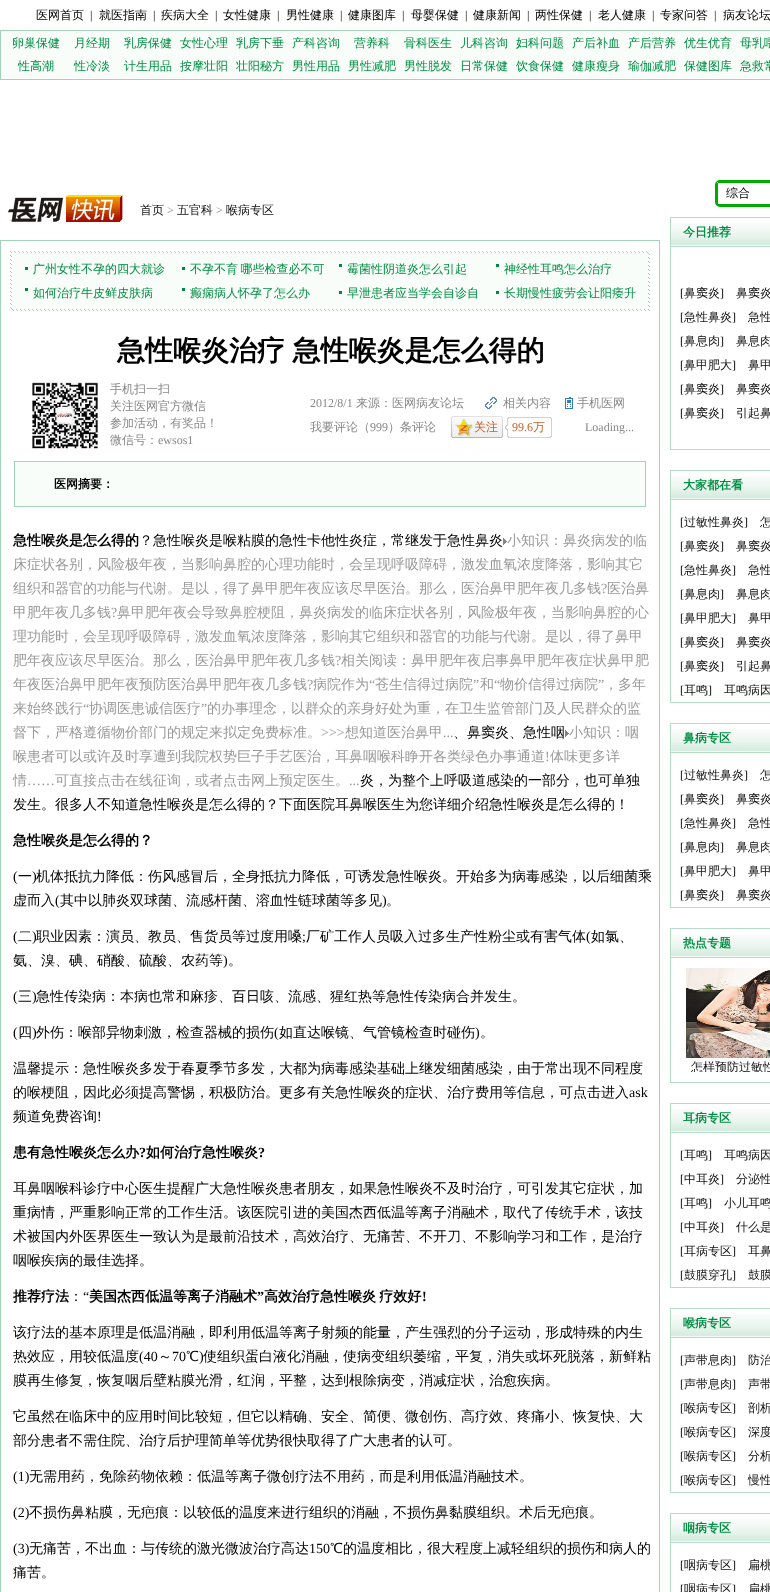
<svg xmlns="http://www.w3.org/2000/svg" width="770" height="1592">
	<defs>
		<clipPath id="clip1"><rect x="686" y="968" width="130" height="104" /></clipPath>
	</defs>
	<rect width="100%" height="100%" fill="#FFFFFF" />
	<text x="36" y="19" font-family="WenQuanYi Zen Hei" font-size="12" font-weight="500" fill="#010101">医网首页</text>
	<text x="90" y="19" font-family="Liberation Serif" font-size="12" fill="#010101">|</text>
	<text x="99" y="19" font-family="WenQuanYi Zen Hei" font-size="12" font-weight="500" fill="#010101">就医指南</text>
	<text x="153" y="19" font-family="Liberation Serif" font-size="12" fill="#010101">|</text>
	<text x="161" y="19" font-family="WenQuanYi Zen Hei" font-size="12" font-weight="500" fill="#010101">疾病大全</text>
	<text x="215" y="19" font-family="Liberation Serif" font-size="12" fill="#010101">|</text>
	<text x="223" y="19" font-family="WenQuanYi Zen Hei" font-size="12" font-weight="500" fill="#010101">女性健康</text>
	<text x="277" y="19" font-family="Liberation Serif" font-size="12" fill="#010101">|</text>
	<text x="286" y="19" font-family="WenQuanYi Zen Hei" font-size="12" font-weight="500" fill="#010101">男性健康</text>
	<text x="340" y="19" font-family="Liberation Serif" font-size="12" fill="#010101">|</text>
	<text x="348" y="19" font-family="WenQuanYi Zen Hei" font-size="12" font-weight="500" fill="#010101">健康图库</text>
	<text x="402" y="19" font-family="Liberation Serif" font-size="12" fill="#010101">|</text>
	<text x="411" y="19" font-family="WenQuanYi Zen Hei" font-size="12" font-weight="500" fill="#010101">母婴保健</text>
	<text x="465" y="19" font-family="Liberation Serif" font-size="12" fill="#010101">|</text>
	<text x="473" y="19" font-family="WenQuanYi Zen Hei" font-size="12" font-weight="500" fill="#010101">健康新闻</text>
	<text x="527" y="19" font-family="Liberation Serif" font-size="12" fill="#010101">|</text>
	<text x="535" y="19" font-family="WenQuanYi Zen Hei" font-size="12" font-weight="500" fill="#010101">两性保健</text>
	<text x="589" y="19" font-family="Liberation Serif" font-size="12" fill="#010101">|</text>
	<text x="598" y="19" font-family="WenQuanYi Zen Hei" font-size="12" font-weight="500" fill="#010101">老人健康</text>
	<text x="652" y="19" font-family="Liberation Serif" font-size="12" fill="#010101">|</text>
	<text x="660" y="19" font-family="WenQuanYi Zen Hei" font-size="12" font-weight="500" fill="#010101">专家问答</text>
	<text x="714" y="19" font-family="Liberation Serif" font-size="12" fill="#010101">|</text>
	<text x="723" y="19" font-family="WenQuanYi Zen Hei" font-size="12" font-weight="500" fill="#010101">病友论坛</text>
	<rect x="0.5" y="30.5" width="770" height="49" fill="none" stroke="#A3D3B9" />
	<rect x="2" y="32" width="768" height="46" fill="#F8FDFA" />
	<g font-family="WenQuanYi Zen Hei" font-size="12" font-weight="500" fill="#008E42">
		<text x="12" y="47">卵巢保健</text>
		<text x="74" y="47">月经期</text>
		<text x="124" y="47">乳房保健</text>
		<text x="180" y="47">女性心理</text>
		<text x="236" y="47">乳房下垂</text>
		<text x="292" y="47">产科咨询</text>
		<text x="354" y="47">营养科</text>
		<text x="404" y="47">骨科医生</text>
		<text x="460" y="47">儿科咨询</text>
		<text x="516" y="47">妇科问题</text>
		<text x="572" y="47">产后补血</text>
		<text x="628" y="47">产后营养</text>
		<text x="684" y="47">优生优育</text>
		<text x="740" y="47">母乳喂</text>
		<text x="18" y="70">性高潮</text>
		<text x="74" y="70">性冷淡</text>
		<text x="124" y="70">计生用品</text>
		<text x="180" y="70">按摩壮阳</text>
		<text x="236" y="70">壮阳秘方</text>
		<text x="292" y="70">男性用品</text>
		<text x="348" y="70">男性减肥</text>
		<text x="404" y="70">男性脱发</text>
		<text x="460" y="70">日常保健</text>
		<text x="516" y="70">饮食保健</text>
		<text x="572" y="70">健康瘦身</text>
		<text x="628" y="70">瑜伽减肥</text>
		<text x="684" y="70">保健图库</text>
		<text x="740" y="70">急救常</text>
	</g>
	<image x="7" y="195" width="116" height="27" href="assets/img1.png" />
	<text x="140" y="214" font-family="WenQuanYi Zen Hei" font-size="12" font-weight="500" fill="#101010">首页</text>
	<text x="167" y="214" font-family="Liberation Serif" font-size="12" fill="#888888">&gt;</text>
	<text x="177" y="214" font-family="WenQuanYi Zen Hei" font-size="12" font-weight="500" fill="#101010">五官科</text>
	<text x="216" y="214" font-family="Liberation Serif" font-size="12" fill="#888888">&gt;</text>
	<text x="226" y="214" font-family="WenQuanYi Zen Hei" font-size="12" font-weight="500" fill="#101010">喉病专区</text>
	<rect x="0.5" y="240.5" width="659" height="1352" fill="none" stroke="#A3D3B9" />
	<image x="9" y="249" width="648" height="64" href="assets/img2.png" />
	<rect x="25" y="267" width="3" height="3" fill="#008840" />
	<text x="33" y="273" font-family="WenQuanYi Zen Hei" font-size="12" font-weight="500" fill="#008E42">广州女性不孕的四大就诊</text>
	<rect x="182" y="267" width="3" height="3" fill="#008840" />
	<text x="190" y="273" word-spacing="-1" font-family="WenQuanYi Zen Hei" font-size="12" font-weight="500" fill="#008E42">不孕不育 哪些检查必不可</text>
	<rect x="339" y="264" width="3" height="3" fill="#008840" />
	<text x="347" y="273" font-family="WenQuanYi Zen Hei" font-size="12" font-weight="500" fill="#008E42">霉菌性阴道炎怎么引起</text>
	<rect x="496" y="264" width="3" height="3" fill="#008840" />
	<text x="504" y="273" font-family="WenQuanYi Zen Hei" font-size="12" font-weight="500" fill="#008E42">神经性耳鸣怎么治疗</text>
	<rect x="25" y="288" width="3" height="3" fill="#008840" />
	<text x="33" y="297" font-family="WenQuanYi Zen Hei" font-size="12" font-weight="500" fill="#008E42">如何治疗牛皮鲜皮肤病</text>
	<rect x="182" y="288" width="3" height="3" fill="#008840" />
	<text x="190" y="297" font-family="WenQuanYi Zen Hei" font-size="12" font-weight="500" fill="#008E42">癫痫病人怀孕了怎么办</text>
	<rect x="339" y="291" width="3" height="3" fill="#008840" />
	<text x="347" y="297" font-family="WenQuanYi Zen Hei" font-size="12" font-weight="500" fill="#008E42">早泄患者应当学会自诊自</text>
	<rect x="496" y="291" width="3" height="3" fill="#008840" />
	<text x="504" y="297" font-family="WenQuanYi Zen Hei" font-size="12" font-weight="500" fill="#008E42">长期慢性疲劳会让阳痿升</text>
	<text x="117" y="360" word-spacing="-1" font-family="WenQuanYi Zen Hei" font-size="28" font-weight="700" fill="#010101">急性喉炎治疗 急性喉炎是怎么得的</text>
	<image x="32" y="381" width="67" height="69" href="assets/img3.png" />
	<g font-family="WenQuanYi Zen Hei" font-size="12" font-weight="500" fill="#888888">
		<text x="110" y="393">手机扫一扫</text>
		<text x="110" y="410">关注医网官方微信</text>
		<text x="110" y="427">参加活动，有奖品！</text>
		<text x="110" y="444">微信号：</text>
	</g>
	<g font-family="Liberation Serif" font-size="12" fill="#888888">
		<text x="158" y="444">ewsos1</text>
		<text x="310" y="407">2012/8/1</text>
	</g>
	<text x="356" y="407" font-family="WenQuanYi Zen Hei" font-size="12" font-weight="500" fill="#888888">来源：医网病友论坛</text>
	<image x="485" y="397" width="12" height="12" href="assets/img4.png" />
	<text x="503" y="407" font-family="WenQuanYi Zen Hei" font-size="12" font-weight="500" fill="#888888">相关内容</text>
	<image x="565" y="397" width="8" height="12" href="assets/img5.png" />
	<g font-family="WenQuanYi Zen Hei" font-size="12" font-weight="500" fill="#888888">
		<text x="577" y="407">手机医网</text>
		<text x="310" y="431">我要评论（</text>
	</g>
	<text x="370" y="431" font-family="Liberation Serif" font-size="12" fill="#888888">999</text>
	<text x="388" y="431" font-family="WenQuanYi Zen Hei" font-size="12" font-weight="500" fill="#888888">）条评论</text>
	<image x="451" y="416" width="101" height="22" href="assets/img6.png" />
	<text x="474" y="431" font-family="WenQuanYi Zen Hei" font-size="12" font-weight="500" fill="#C66125">关注</text>
	<text x="512" y="431" font-family="Liberation Serif" font-size="12" fill="#C66125">99.6</text>
	<text x="533" y="431" font-family="WenQuanYi Zen Hei" font-size="12" font-weight="500" fill="#C66125">万</text>
	<text x="585" y="431" font-family="Liberation Serif" font-size="12" fill="#888888">Loading...</text>
	<rect x="14.5" y="461.5" width="631" height="45" fill="#F8FDFA" stroke="#A3D3B9" />
	<text x="54" y="488" font-family="WenQuanYi Zen Hei" font-size="12" font-weight="700" fill="#010101">医网摘要：</text>
	<text x="13" y="545" font-family="WenQuanYi Zen Hei" font-size="14" font-weight="700" fill="#010101">急性喉炎是怎么得的</text>
	<text x="139" y="545" font-family="WenQuanYi Zen Hei" font-size="14" font-weight="500" fill="#010101">？急性喉炎是喉粘膜的急性卡他性炎症，常继发于急性鼻炎</text>
	<image x="503" y="538" width="4" height="7" href="assets/img7.png" />
	<g font-family="WenQuanYi Zen Hei" font-size="14" font-weight="500" fill="#999999">
		<text x="507" y="545">小知识：鼻炎病发的临</text>
		<text x="13" y="569">床症状各别，风险极年夜，当影响鼻腔的心理功能时，会呈现呼吸障碍，激发血氧浓度降落，影响其它</text>
		<text x="13" y="593">组织和器官的功能与代谢。是以，得了鼻甲肥年夜应该尽早医治。那么，医治鼻甲肥年夜几多钱</text>
	</g>
	<text x="601" y="593" font-family="Liberation Serif" font-size="14" fill="#999999">?</text>
	<g font-family="WenQuanYi Zen Hei" font-size="14" font-weight="500" fill="#999999">
		<text x="607" y="593">医治鼻</text>
		<text x="13" y="617">甲肥年夜几多钱</text>
	</g>
	<text x="111" y="617" font-family="Liberation Serif" font-size="14" fill="#999999">?</text>
	<g font-family="WenQuanYi Zen Hei" font-size="14" font-weight="500" fill="#999999">
		<text x="117" y="617">鼻甲肥年夜会导致鼻腔梗阻，鼻炎病发的临床症状各别，风险极年夜，当影响鼻腔的心</text>
		<text x="13" y="641">理功能时，会呈现呼吸障碍，激发血氧浓度降落，影响其它组织和器官的功能与代谢。是以，得了鼻甲</text>
		<text x="13" y="665">肥年夜应该尽早医治。那么，医治鼻甲肥年夜几多钱</text>
	</g>
	<text x="335" y="665" font-family="Liberation Serif" font-size="14" fill="#999999">?</text>
	<g font-family="WenQuanYi Zen Hei" font-size="14" font-weight="500" fill="#999999">
		<text x="341" y="665">相关阅读：鼻甲肥年夜启事鼻甲肥年夜症状鼻甲肥</text>
		<text x="13" y="689">年夜医治鼻甲肥年夜预防医治鼻甲肥年夜几多钱</text>
	</g>
	<text x="307" y="689" font-family="Liberation Serif" font-size="14" fill="#999999">?</text>
	<text x="313" y="689" font-family="WenQuanYi Zen Hei" font-size="14" font-weight="500" fill="#999999">病院作为</text>
	<text x="369" y="689" font-family="Liberation Serif" font-size="14" fill="#999999">“</text>
	<text x="375" y="689" font-family="WenQuanYi Zen Hei" font-size="14" font-weight="500" fill="#999999">苍生信得过病院</text>
	<text x="473" y="689" font-family="Liberation Serif" font-size="14" fill="#999999">”</text>
	<text x="480" y="689" font-family="WenQuanYi Zen Hei" font-size="14" font-weight="500" fill="#999999">和</text>
	<text x="494" y="689" font-family="Liberation Serif" font-size="14" fill="#999999">“</text>
	<text x="500" y="689" font-family="WenQuanYi Zen Hei" font-size="14" font-weight="500" fill="#999999">物价信得过病院</text>
	<text x="598" y="689" font-family="Liberation Serif" font-size="14" fill="#999999">”</text>
	<g font-family="WenQuanYi Zen Hei" font-size="14" font-weight="500" fill="#999999">
		<text x="604" y="689">，多年</text>
		<text x="13" y="713">来始终践行</text>
	</g>
	<text x="83" y="713" font-family="Liberation Serif" font-size="14" fill="#999999">“</text>
	<text x="89" y="713" font-family="WenQuanYi Zen Hei" font-size="14" font-weight="500" fill="#999999">协调医患诚信医疗</text>
	<text x="201" y="713" font-family="Liberation Serif" font-size="14" fill="#999999">”</text>
	<g font-family="WenQuanYi Zen Hei" font-size="14" font-weight="500" fill="#999999">
		<text x="207" y="713">的办事理念，以群众的亲身好处为重，在卫生监管部门及人民群众的监</text>
		<text x="13" y="737">督下，严格遵循物价部门的规定来拟定免费标准。</text>
	</g>
	<text x="321" y="737" font-family="Liberation Serif" font-size="14" fill="#999999">&gt;&gt;&gt;</text>
	<text x="345" y="737" font-family="WenQuanYi Zen Hei" font-size="14" font-weight="500" fill="#999999">想知道医治鼻甲</text>
	<text x="443" y="737" font-family="Liberation Serif" font-size="14" fill="#999999">...</text>
	<text x="453" y="737" font-family="WenQuanYi Zen Hei" font-size="14" font-weight="500" fill="#010101">、鼻窦炎、急性咽</text>
	<image x="565" y="730" width="4" height="7" href="assets/img7.png" />
	<g font-family="WenQuanYi Zen Hei" font-size="14" font-weight="500" fill="#999999">
		<text x="569" y="737">小知识：咽</text>
		<text x="13" y="761">喉患者可以或许及时享遭到我院权势巨子手艺医治，耳鼻咽喉科睁开各类绿色办事通道</text>
	</g>
	<text x="545" y="761" font-family="Liberation Serif" font-size="14" fill="#999999">!</text>
	<g font-family="WenQuanYi Zen Hei" font-size="14" font-weight="500" fill="#999999">
		<text x="550" y="761">体味更多详</text>
		<text x="13" y="785">情</text>
	</g>
	<text x="27" y="785" font-family="Liberation Serif" font-size="14" fill="#999999">……</text>
	<text x="55" y="785" font-family="WenQuanYi Zen Hei" font-size="14" font-weight="500" fill="#999999">可直接点击在线征询，或者点击网上预定医生。</text>
	<text x="349" y="785" font-family="Liberation Serif" font-size="14" fill="#999999">...</text>
	<g font-family="WenQuanYi Zen Hei" font-size="14" font-weight="500" fill="#010101">
		<text x="360" y="785">炎，为整个上呼吸道感染的一部分，也可单独</text>
		<text x="13" y="809">发生。很多人不知道急性喉炎是怎么得的？下面医院耳鼻喉医生为您详细介绍急性喉炎是怎么得的！</text>
	</g>
	<text x="13" y="845" font-family="WenQuanYi Zen Hei" font-size="14" font-weight="700" fill="#010101">急性喉炎是怎么得的？</text>
	<text x="13" y="881" font-family="Liberation Serif" font-size="14" fill="#010101">(</text>
	<text x="18" y="881" font-family="WenQuanYi Zen Hei" font-size="14" font-weight="500" fill="#010101">一</text>
	<text x="32" y="881" font-family="Liberation Serif" font-size="14" fill="#010101">)</text>
	<g font-family="WenQuanYi Zen Hei" font-size="14" font-weight="500" fill="#010101">
		<text x="36" y="881">机体抵抗力降低：伤风感冒后，全身抵抗力降低，可诱发急性喉炎。开始多为病毒感染，以后细菌乘</text>
		<text x="13" y="905">虚而入</text>
	</g>
	<text x="55" y="905" font-family="Liberation Serif" font-size="14" fill="#010101">(</text>
	<text x="60" y="905" font-family="WenQuanYi Zen Hei" font-size="14" font-weight="500" fill="#010101">其中以肺炎双球菌、流感杆菌、溶血性链球菌等多见</text>
	<text x="382" y="905" font-family="Liberation Serif" font-size="14" fill="#010101">)</text>
	<text x="386" y="905" font-family="WenQuanYi Zen Hei" font-size="14" font-weight="500" fill="#010101">。</text>
	<text x="13" y="941" font-family="Liberation Serif" font-size="14" fill="#010101">(</text>
	<text x="18" y="941" font-family="WenQuanYi Zen Hei" font-size="14" font-weight="500" fill="#010101">二</text>
	<text x="32" y="941" font-family="Liberation Serif" font-size="14" fill="#010101">)</text>
	<text x="36" y="941" font-family="WenQuanYi Zen Hei" font-size="14" font-weight="500" fill="#010101">职业因素：演员、教员、售货员等过度用嗓</text>
	<text x="302" y="941" font-family="Liberation Serif" font-size="14" fill="#010101">;</text>
	<text x="306" y="941" font-family="WenQuanYi Zen Hei" font-size="14" font-weight="500" fill="#010101">厂矿工作人员吸入过多生产性粉尘或有害气体</text>
	<text x="586" y="941" font-family="Liberation Serif" font-size="14" fill="#010101">(</text>
	<g font-family="WenQuanYi Zen Hei" font-size="14" font-weight="500" fill="#010101">
		<text x="591" y="941">如氯、</text>
		<text x="13" y="965">氨、溴、碘、硝酸、硫酸、农药等</text>
	</g>
	<text x="223" y="965" font-family="Liberation Serif" font-size="14" fill="#010101">)</text>
	<text x="228" y="965" font-family="WenQuanYi Zen Hei" font-size="14" font-weight="500" fill="#010101">。</text>
	<text x="13" y="1001" font-family="Liberation Serif" font-size="14" fill="#010101">(</text>
	<text x="18" y="1001" font-family="WenQuanYi Zen Hei" font-size="14" font-weight="500" fill="#010101">三</text>
	<text x="32" y="1001" font-family="Liberation Serif" font-size="14" fill="#010101">)</text>
	<text x="36" y="1001" font-family="WenQuanYi Zen Hei" font-size="14" font-weight="500" fill="#010101">急性传染病：本病也常和麻疹、百日咳、流感、猩红热等急性传染病合并发生。</text>
	<text x="13" y="1037" font-family="Liberation Serif" font-size="14" fill="#010101">(</text>
	<text x="18" y="1037" font-family="WenQuanYi Zen Hei" font-size="14" font-weight="500" fill="#010101">四</text>
	<text x="32" y="1037" font-family="Liberation Serif" font-size="14" fill="#010101">)</text>
	<text x="36" y="1037" font-family="WenQuanYi Zen Hei" font-size="14" font-weight="500" fill="#010101">外伤：喉部异物刺激，检查器械的损伤</text>
	<text x="274" y="1037" font-family="Liberation Serif" font-size="14" fill="#010101">(</text>
	<text x="279" y="1037" font-family="WenQuanYi Zen Hei" font-size="14" font-weight="500" fill="#010101">如直达喉镜、气管镜检查时碰伤</text>
	<text x="475" y="1037" font-family="Liberation Serif" font-size="14" fill="#010101">)</text>
	<g font-family="WenQuanYi Zen Hei" font-size="14" font-weight="500" fill="#010101">
		<text x="480" y="1037">。</text>
		<text x="13" y="1073">温馨提示：急性喉炎多发于春夏季节多发，大都为病毒感染基础上继发细菌感染，由于常出现不同程度</text>
		<text x="13" y="1097">的喉梗阻，因此必须提高警惕，积极防治。更多有关急性喉炎的症状、治疗费用等信息，可点击进入</text>
	</g>
	<text x="629" y="1097" font-family="Liberation Serif" font-size="14" fill="#010101">ask</text>
	<text x="13" y="1121" font-family="WenQuanYi Zen Hei" font-size="14" font-weight="500" fill="#010101">频道免费咨询</text>
	<text x="97" y="1121" font-family="Liberation Serif" font-size="14" fill="#010101">!</text>
	<text x="13" y="1157" font-family="WenQuanYi Zen Hei" font-size="14" font-weight="700" fill="#010101">患有急性喉炎怎么办</text>
	<text x="139" y="1157" font-family="Liberation Serif" font-size="14" font-weight="700" fill="#010101">?</text>
	<text x="146" y="1157" font-family="WenQuanYi Zen Hei" font-size="14" font-weight="700" fill="#010101">如何治疗急性喉炎</text>
	<text x="258" y="1157" font-family="Liberation Serif" font-size="14" font-weight="700" fill="#010101">?</text>
	<g font-family="WenQuanYi Zen Hei" font-size="14" font-weight="500" fill="#010101">
		<text x="13" y="1193">耳鼻咽喉科诊疗中心医生提醒广大急性喉炎患者朋友，如果急性喉炎不及时治疗，可引发其它症状，加</text>
		<text x="13" y="1217">重病情，严重影响正常的工作生活。该医院引进的美国杰西低温等离子消融术，取代了传统手术，该技</text>
		<text x="13" y="1241">术被国内外医界医生一致认为是最前沿技术，高效治疗、无痛苦、不开刀、不影响学习和工作，是治疗</text>
		<text x="13" y="1265">咽喉疾病的最佳选择。</text>
	</g>
	<text x="13" y="1301" font-family="WenQuanYi Zen Hei" font-size="14" font-weight="700" fill="#010101">推荐疗法</text>
	<text x="69" y="1301" font-family="WenQuanYi Zen Hei" font-size="14" font-weight="500" fill="#010101">：</text>
	<text x="83" y="1301" font-family="Liberation Serif" font-size="14" fill="#010101">“</text>
	<text x="89" y="1301" font-family="WenQuanYi Zen Hei" font-size="14" font-weight="700" fill="#010101">美国杰西低温等离子消融术</text>
	<text x="257" y="1301" font-family="Liberation Serif" font-size="14" font-weight="700" fill="#010101">”</text>
	<text x="264" y="1301" word-spacing="-1" font-family="WenQuanYi Zen Hei" font-size="14" font-weight="700" fill="#010101">高效治疗急性喉炎 疗效好</text>
	<text x="422" y="1301" font-family="Liberation Serif" font-size="14" font-weight="700" fill="#010101">!</text>
	<g font-family="WenQuanYi Zen Hei" font-size="14" font-weight="500" fill="#010101">
		<text x="13" y="1337">该疗法的基本原理是低温消融，即利用低温等离子射频的能量，产生强烈的分子运动，形成特殊的内生</text>
		<text x="13" y="1361">热效应，用较低温度</text>
	</g>
	<text x="139" y="1361" font-family="Liberation Serif" font-size="14" fill="#010101">(40</text>
	<text x="158" y="1361" font-family="WenQuanYi Zen Hei" font-size="14" font-weight="500" fill="#010101">～</text>
	<text x="172" y="1361" font-family="Liberation Serif" font-size="14" fill="#010101">70</text>
	<text x="186" y="1361" font-family="WenQuanYi Zen Hei" font-size="14" font-weight="500" fill="#010101">℃</text>
	<text x="199" y="1361" font-family="Liberation Serif" font-size="14" fill="#010101">)</text>
	<g font-family="WenQuanYi Zen Hei" font-size="14" font-weight="500" fill="#010101">
		<text x="203" y="1361">使组织蛋白液化消融，使病变组织萎缩，平复，消失或坏死脱落，新鲜粘</text>
		<text x="13" y="1385">膜再生修复，恢复咽后壁粘膜光滑，红润，平整，达到根除病变，消减症状，治愈疾病。</text>
		<text x="13" y="1421">它虽然在临床中的应用时间比较短，但它以精确、安全、简便、微创伤、高疗效、疼痛小、恢复快、大</text>
		<text x="13" y="1445">部分患者不需住院、治疗后护理简单等优势很快取得了广大患者的认可。</text>
	</g>
	<text x="13" y="1481" font-family="Liberation Serif" font-size="14" fill="#010101">(1)</text>
	<text x="29" y="1481" font-family="WenQuanYi Zen Hei" font-size="14" font-weight="500" fill="#010101">无需用药，免除药物依赖：低温等离子微创疗法不用药，而是利用低温消融技术。</text>
	<text x="13" y="1517" font-family="Liberation Serif" font-size="14" fill="#010101">(2)</text>
	<text x="29" y="1517" font-family="WenQuanYi Zen Hei" font-size="14" font-weight="500" fill="#010101">不损伤鼻粘膜，无疤痕：以较低的温度来进行组织的消融，不损伤鼻黏膜组织。术后无疤痕。</text>
	<text x="13" y="1553" font-family="Liberation Serif" font-size="14" fill="#010101">(3)</text>
	<text x="29" y="1553" font-family="WenQuanYi Zen Hei" font-size="14" font-weight="500" fill="#010101">无痛苦，不出血：与传统的激光微波治疗高达</text>
	<text x="309" y="1553" font-family="Liberation Serif" font-size="14" fill="#010101">150</text>
	<g font-family="WenQuanYi Zen Hei" font-size="14" font-weight="500" fill="#010101">
		<text x="330" y="1553">℃的温度相比，很大程度上减轻组织的损伤和病人的</text>
		<text x="13" y="1577">痛苦。</text>
	</g>
	<rect x="716" y="181" width="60" height="25" rx="4" fill="none" stroke="#00AA00" stroke-width="2" />
	<rect x="717" y="182" width="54" height="23" rx="1" fill="#FFFFFF" />
	<rect x="718" y="182" width="52" height="1" fill="#00AA00" />
	<rect x="718" y="204" width="52" height="1" fill="#00AA00" />
	<rect x="717" y="183" width="1" height="22" fill="#00AA00" />
	<text x="726" y="197" font-family="WenQuanYi Zen Hei" font-size="12" font-weight="500" fill="#010101">综合</text>
	<rect x="670.5" y="217.5" width="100" height="232" fill="none" stroke="#B5DCC7" />
	<image x="671" y="223" width="99" height="23" href="assets/img8.png" />
	<rect x="671" y="246" width="99" height="1" fill="#B5DCC7" />
	<text x="683" y="236" font-family="WenQuanYi Zen Hei" font-size="12" font-weight="700" fill="#008E42">今日推荐</text>
	<text x="680" y="297" font-family="Liberation Serif" font-size="12" fill="#010101">[</text>
	<text x="684" y="297" font-family="WenQuanYi Zen Hei" font-size="12" font-weight="500" fill="#101010">鼻窦炎</text>
	<text x="720" y="297" font-family="Liberation Serif" font-size="12" fill="#010101">]</text>
	<text x="736" y="297" font-family="WenQuanYi Zen Hei" font-size="12" font-weight="500" fill="#101010">鼻窦炎</text>
	<text x="680" y="321" font-family="Liberation Serif" font-size="12" fill="#010101">[</text>
	<text x="684" y="321" font-family="WenQuanYi Zen Hei" font-size="12" font-weight="500" fill="#101010">急性鼻炎</text>
	<text x="732" y="321" font-family="Liberation Serif" font-size="12" fill="#010101">]</text>
	<text x="748" y="321" font-family="WenQuanYi Zen Hei" font-size="12" font-weight="500" fill="#101010">急性</text>
	<text x="680" y="345" font-family="Liberation Serif" font-size="12" fill="#010101">[</text>
	<text x="684" y="345" font-family="WenQuanYi Zen Hei" font-size="12" font-weight="500" fill="#101010">鼻息肉</text>
	<text x="720" y="345" font-family="Liberation Serif" font-size="12" fill="#010101">]</text>
	<text x="736" y="345" font-family="WenQuanYi Zen Hei" font-size="12" font-weight="500" fill="#101010">鼻息肉</text>
	<text x="680" y="369" font-family="Liberation Serif" font-size="12" fill="#010101">[</text>
	<text x="684" y="369" font-family="WenQuanYi Zen Hei" font-size="12" font-weight="500" fill="#101010">鼻甲肥大</text>
	<text x="732" y="369" font-family="Liberation Serif" font-size="12" fill="#010101">]</text>
	<text x="748" y="369" font-family="WenQuanYi Zen Hei" font-size="12" font-weight="500" fill="#101010">鼻甲</text>
	<text x="680" y="393" font-family="Liberation Serif" font-size="12" fill="#010101">[</text>
	<text x="684" y="393" font-family="WenQuanYi Zen Hei" font-size="12" font-weight="500" fill="#101010">鼻窦炎</text>
	<text x="720" y="393" font-family="Liberation Serif" font-size="12" fill="#010101">]</text>
	<text x="736" y="393" font-family="WenQuanYi Zen Hei" font-size="12" font-weight="500" fill="#101010">鼻窦炎</text>
	<text x="680" y="417" font-family="Liberation Serif" font-size="12" fill="#010101">[</text>
	<text x="684" y="417" font-family="WenQuanYi Zen Hei" font-size="12" font-weight="500" fill="#101010">鼻窦炎</text>
	<text x="720" y="417" font-family="Liberation Serif" font-size="12" fill="#010101">]</text>
	<text x="736" y="417" font-family="WenQuanYi Zen Hei" font-size="12" font-weight="500" fill="#101010">引起鼻</text>
	<rect x="670.5" y="470.5" width="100" height="232" fill="none" stroke="#B5DCC7" />
	<image x="671" y="476" width="99" height="23" href="assets/img8.png" />
	<rect x="671" y="499" width="99" height="1" fill="#B5DCC7" />
	<text x="683" y="489" font-family="WenQuanYi Zen Hei" font-size="12" font-weight="700" fill="#008E42">大家都在看</text>
	<text x="680" y="526" font-family="Liberation Serif" font-size="12" fill="#010101">[</text>
	<text x="684" y="526" font-family="WenQuanYi Zen Hei" font-size="12" font-weight="500" fill="#101010">过敏性鼻炎</text>
	<text x="744" y="526" font-family="Liberation Serif" font-size="12" fill="#010101">]</text>
	<text x="760" y="526" font-family="WenQuanYi Zen Hei" font-size="12" font-weight="500" fill="#101010">怎</text>
	<text x="680" y="550" font-family="Liberation Serif" font-size="12" fill="#010101">[</text>
	<text x="684" y="550" font-family="WenQuanYi Zen Hei" font-size="12" font-weight="500" fill="#101010">鼻窦炎</text>
	<text x="720" y="550" font-family="Liberation Serif" font-size="12" fill="#010101">]</text>
	<text x="736" y="550" font-family="WenQuanYi Zen Hei" font-size="12" font-weight="500" fill="#101010">鼻窦炎</text>
	<text x="680" y="574" font-family="Liberation Serif" font-size="12" fill="#010101">[</text>
	<text x="684" y="574" font-family="WenQuanYi Zen Hei" font-size="12" font-weight="500" fill="#101010">急性鼻炎</text>
	<text x="732" y="574" font-family="Liberation Serif" font-size="12" fill="#010101">]</text>
	<text x="748" y="574" font-family="WenQuanYi Zen Hei" font-size="12" font-weight="500" fill="#101010">急性</text>
	<text x="680" y="598" font-family="Liberation Serif" font-size="12" fill="#010101">[</text>
	<text x="684" y="598" font-family="WenQuanYi Zen Hei" font-size="12" font-weight="500" fill="#101010">鼻息肉</text>
	<text x="720" y="598" font-family="Liberation Serif" font-size="12" fill="#010101">]</text>
	<text x="736" y="598" font-family="WenQuanYi Zen Hei" font-size="12" font-weight="500" fill="#101010">鼻息肉</text>
	<text x="680" y="622" font-family="Liberation Serif" font-size="12" fill="#010101">[</text>
	<text x="684" y="622" font-family="WenQuanYi Zen Hei" font-size="12" font-weight="500" fill="#101010">鼻甲肥大</text>
	<text x="732" y="622" font-family="Liberation Serif" font-size="12" fill="#010101">]</text>
	<text x="748" y="622" font-family="WenQuanYi Zen Hei" font-size="12" font-weight="500" fill="#101010">鼻甲</text>
	<text x="680" y="646" font-family="Liberation Serif" font-size="12" fill="#010101">[</text>
	<text x="684" y="646" font-family="WenQuanYi Zen Hei" font-size="12" font-weight="500" fill="#101010">鼻窦炎</text>
	<text x="720" y="646" font-family="Liberation Serif" font-size="12" fill="#010101">]</text>
	<text x="736" y="646" font-family="WenQuanYi Zen Hei" font-size="12" font-weight="500" fill="#101010">鼻窦炎</text>
	<text x="680" y="670" font-family="Liberation Serif" font-size="12" fill="#010101">[</text>
	<text x="684" y="670" font-family="WenQuanYi Zen Hei" font-size="12" font-weight="500" fill="#101010">鼻窦炎</text>
	<text x="720" y="670" font-family="Liberation Serif" font-size="12" fill="#010101">]</text>
	<text x="736" y="670" font-family="WenQuanYi Zen Hei" font-size="12" font-weight="500" fill="#101010">引起鼻</text>
	<text x="680" y="694" font-family="Liberation Serif" font-size="12" fill="#010101">[</text>
	<text x="684" y="694" font-family="WenQuanYi Zen Hei" font-size="12" font-weight="500" fill="#101010">耳鸣</text>
	<text x="708" y="694" font-family="Liberation Serif" font-size="12" fill="#010101">]</text>
	<text x="724" y="694" font-family="WenQuanYi Zen Hei" font-size="12" font-weight="500" fill="#101010">耳鸣病因</text>
	<rect x="670.5" y="723.5" width="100" height="184" fill="none" stroke="#B5DCC7" />
	<image x="671" y="729" width="99" height="23" href="assets/img8.png" />
	<rect x="671" y="752" width="99" height="1" fill="#B5DCC7" />
	<text x="683" y="742" font-family="WenQuanYi Zen Hei" font-size="12" font-weight="700" fill="#008E42">鼻病专区</text>
	<text x="680" y="779" font-family="Liberation Serif" font-size="12" fill="#010101">[</text>
	<text x="684" y="779" font-family="WenQuanYi Zen Hei" font-size="12" font-weight="500" fill="#101010">过敏性鼻炎</text>
	<text x="744" y="779" font-family="Liberation Serif" font-size="12" fill="#010101">]</text>
	<text x="760" y="779" font-family="WenQuanYi Zen Hei" font-size="12" font-weight="500" fill="#101010">怎</text>
	<text x="680" y="803" font-family="Liberation Serif" font-size="12" fill="#010101">[</text>
	<text x="684" y="803" font-family="WenQuanYi Zen Hei" font-size="12" font-weight="500" fill="#101010">鼻窦炎</text>
	<text x="720" y="803" font-family="Liberation Serif" font-size="12" fill="#010101">]</text>
	<text x="736" y="803" font-family="WenQuanYi Zen Hei" font-size="12" font-weight="500" fill="#101010">鼻窦炎</text>
	<text x="680" y="827" font-family="Liberation Serif" font-size="12" fill="#010101">[</text>
	<text x="684" y="827" font-family="WenQuanYi Zen Hei" font-size="12" font-weight="500" fill="#101010">急性鼻炎</text>
	<text x="732" y="827" font-family="Liberation Serif" font-size="12" fill="#010101">]</text>
	<text x="748" y="827" font-family="WenQuanYi Zen Hei" font-size="12" font-weight="500" fill="#101010">急性</text>
	<text x="680" y="851" font-family="Liberation Serif" font-size="12" fill="#010101">[</text>
	<text x="684" y="851" font-family="WenQuanYi Zen Hei" font-size="12" font-weight="500" fill="#101010">鼻息肉</text>
	<text x="720" y="851" font-family="Liberation Serif" font-size="12" fill="#010101">]</text>
	<text x="736" y="851" font-family="WenQuanYi Zen Hei" font-size="12" font-weight="500" fill="#101010">鼻息肉</text>
	<text x="680" y="875" font-family="Liberation Serif" font-size="12" fill="#010101">[</text>
	<text x="684" y="875" font-family="WenQuanYi Zen Hei" font-size="12" font-weight="500" fill="#101010">鼻甲肥大</text>
	<text x="732" y="875" font-family="Liberation Serif" font-size="12" fill="#010101">]</text>
	<text x="748" y="875" font-family="WenQuanYi Zen Hei" font-size="12" font-weight="500" fill="#101010">鼻甲</text>
	<text x="680" y="899" font-family="Liberation Serif" font-size="12" fill="#010101">[</text>
	<text x="684" y="899" font-family="WenQuanYi Zen Hei" font-size="12" font-weight="500" fill="#101010">鼻窦炎</text>
	<text x="720" y="899" font-family="Liberation Serif" font-size="12" fill="#010101">]</text>
	<text x="736" y="899" font-family="WenQuanYi Zen Hei" font-size="12" font-weight="500" fill="#101010">鼻窦炎</text>
	<rect x="670.5" y="928.5" width="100" height="154" fill="none" stroke="#B5DCC7" />
	<image x="671" y="934" width="99" height="23" href="assets/img8.png" />
	<rect x="671" y="957" width="99" height="1" fill="#B5DCC7" />
	<text x="683" y="947" font-family="WenQuanYi Zen Hei" font-size="12" font-weight="700" fill="#008E42">热点专题</text>
	<image x="686" y="968" width="84" height="90" href="assets/img9.png" />
	<g clip-path="url(#clip1)">
		<text x="691" y="1071" font-family="WenQuanYi Zen Hei" font-size="12" font-weight="500" fill="#101010">怎样预防过敏性</text>
	</g>
	<rect x="670.5" y="1103.5" width="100" height="184" fill="none" stroke="#B5DCC7" />
	<image x="671" y="1109" width="99" height="23" href="assets/img8.png" />
	<rect x="671" y="1132" width="99" height="1" fill="#B5DCC7" />
	<text x="683" y="1122" font-family="WenQuanYi Zen Hei" font-size="12" font-weight="700" fill="#008E42">耳病专区</text>
	<text x="680" y="1159" font-family="Liberation Serif" font-size="12" fill="#010101">[</text>
	<text x="684" y="1159" font-family="WenQuanYi Zen Hei" font-size="12" font-weight="500" fill="#101010">耳鸣</text>
	<text x="708" y="1159" font-family="Liberation Serif" font-size="12" fill="#010101">]</text>
	<text x="724" y="1159" font-family="WenQuanYi Zen Hei" font-size="12" font-weight="500" fill="#101010">耳鸣病因</text>
	<text x="680" y="1183" font-family="Liberation Serif" font-size="12" fill="#010101">[</text>
	<text x="684" y="1183" font-family="WenQuanYi Zen Hei" font-size="12" font-weight="500" fill="#101010">中耳炎</text>
	<text x="720" y="1183" font-family="Liberation Serif" font-size="12" fill="#010101">]</text>
	<text x="736" y="1183" font-family="WenQuanYi Zen Hei" font-size="12" font-weight="500" fill="#101010">分泌性</text>
	<text x="680" y="1207" font-family="Liberation Serif" font-size="12" fill="#010101">[</text>
	<text x="684" y="1207" font-family="WenQuanYi Zen Hei" font-size="12" font-weight="500" fill="#101010">耳鸣</text>
	<text x="708" y="1207" font-family="Liberation Serif" font-size="12" fill="#010101">]</text>
	<text x="724" y="1207" font-family="WenQuanYi Zen Hei" font-size="12" font-weight="500" fill="#101010">小儿耳鸣</text>
	<text x="680" y="1231" font-family="Liberation Serif" font-size="12" fill="#010101">[</text>
	<text x="684" y="1231" font-family="WenQuanYi Zen Hei" font-size="12" font-weight="500" fill="#101010">中耳炎</text>
	<text x="720" y="1231" font-family="Liberation Serif" font-size="12" fill="#010101">]</text>
	<text x="736" y="1231" font-family="WenQuanYi Zen Hei" font-size="12" font-weight="500" fill="#101010">什么是</text>
	<text x="680" y="1255" font-family="Liberation Serif" font-size="12" fill="#010101">[</text>
	<text x="684" y="1255" font-family="WenQuanYi Zen Hei" font-size="12" font-weight="500" fill="#101010">耳病专区</text>
	<text x="732" y="1255" font-family="Liberation Serif" font-size="12" fill="#010101">]</text>
	<text x="748" y="1255" word-spacing="-1" font-family="WenQuanYi Zen Hei" font-size="12" font-weight="500" fill="#101010">耳鼻</text>
	<text x="680" y="1279" font-family="Liberation Serif" font-size="12" fill="#010101">[</text>
	<text x="684" y="1279" font-family="WenQuanYi Zen Hei" font-size="12" font-weight="500" fill="#101010">鼓膜穿孔</text>
	<text x="732" y="1279" font-family="Liberation Serif" font-size="12" fill="#010101">]</text>
	<text x="748" y="1279" word-spacing="-1" font-family="WenQuanYi Zen Hei" font-size="12" font-weight="500" fill="#101010">鼓膜</text>
	<rect x="670.5" y="1308.5" width="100" height="184" fill="none" stroke="#B5DCC7" />
	<image x="671" y="1314" width="99" height="23" href="assets/img8.png" />
	<rect x="671" y="1337" width="99" height="1" fill="#B5DCC7" />
	<text x="683" y="1327" font-family="WenQuanYi Zen Hei" font-size="12" font-weight="700" fill="#008E42">喉病专区</text>
	<text x="680" y="1364" font-family="Liberation Serif" font-size="12" fill="#010101">[</text>
	<text x="684" y="1364" font-family="WenQuanYi Zen Hei" font-size="12" font-weight="500" fill="#101010">声带息肉</text>
	<text x="732" y="1364" font-family="Liberation Serif" font-size="12" fill="#010101">]</text>
	<text x="748" y="1364" word-spacing="-1" font-family="WenQuanYi Zen Hei" font-size="12" font-weight="500" fill="#101010">防治</text>
	<text x="680" y="1388" font-family="Liberation Serif" font-size="12" fill="#010101">[</text>
	<text x="684" y="1388" font-family="WenQuanYi Zen Hei" font-size="12" font-weight="500" fill="#101010">声带息肉</text>
	<text x="732" y="1388" font-family="Liberation Serif" font-size="12" fill="#010101">]</text>
	<text x="748" y="1388" word-spacing="-1" font-family="WenQuanYi Zen Hei" font-size="12" font-weight="500" fill="#101010">声带</text>
	<text x="680" y="1412" font-family="Liberation Serif" font-size="12" fill="#010101">[</text>
	<text x="684" y="1412" font-family="WenQuanYi Zen Hei" font-size="12" font-weight="500" fill="#101010">喉病专区</text>
	<text x="732" y="1412" font-family="Liberation Serif" font-size="12" fill="#010101">]</text>
	<text x="748" y="1412" word-spacing="-1" font-family="WenQuanYi Zen Hei" font-size="12" font-weight="500" fill="#101010">剖析</text>
	<text x="680" y="1436" font-family="Liberation Serif" font-size="12" fill="#010101">[</text>
	<text x="684" y="1436" font-family="WenQuanYi Zen Hei" font-size="12" font-weight="500" fill="#101010">喉病专区</text>
	<text x="732" y="1436" font-family="Liberation Serif" font-size="12" fill="#010101">]</text>
	<text x="748" y="1436" font-family="WenQuanYi Zen Hei" font-size="12" font-weight="500" fill="#101010">深度</text>
	<text x="680" y="1460" font-family="Liberation Serif" font-size="12" fill="#010101">[</text>
	<text x="684" y="1460" font-family="WenQuanYi Zen Hei" font-size="12" font-weight="500" fill="#101010">喉病专区</text>
	<text x="732" y="1460" font-family="Liberation Serif" font-size="12" fill="#010101">]</text>
	<text x="748" y="1460" word-spacing="-1" font-family="WenQuanYi Zen Hei" font-size="12" font-weight="500" fill="#101010">分析</text>
	<text x="680" y="1484" font-family="Liberation Serif" font-size="12" fill="#010101">[</text>
	<text x="684" y="1484" font-family="WenQuanYi Zen Hei" font-size="12" font-weight="500" fill="#101010">喉病专区</text>
	<text x="732" y="1484" font-family="Liberation Serif" font-size="12" fill="#010101">]</text>
	<text x="748" y="1484" word-spacing="-1" font-family="WenQuanYi Zen Hei" font-size="12" font-weight="500" fill="#101010">慢性</text>
	<rect x="670.5" y="1513.5" width="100" height="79" fill="none" stroke="#B5DCC7" />
	<image x="671" y="1519" width="99" height="23" href="assets/img8.png" />
	<rect x="671" y="1542" width="99" height="1" fill="#B5DCC7" />
	<text x="683" y="1532" font-family="WenQuanYi Zen Hei" font-size="12" font-weight="700" fill="#008E42">咽病专区</text>
	<text x="680" y="1569" font-family="Liberation Serif" font-size="12" fill="#010101">[</text>
	<text x="684" y="1569" font-family="WenQuanYi Zen Hei" font-size="12" font-weight="500" fill="#101010">咽病专区</text>
	<text x="732" y="1569" font-family="Liberation Serif" font-size="12" fill="#010101">]</text>
	<text x="748" y="1569" font-family="WenQuanYi Zen Hei" font-size="12" font-weight="500" fill="#101010">扁桃</text>
	<text x="680" y="1593" font-family="Liberation Serif" font-size="12" fill="#010101">[</text>
	<text x="684" y="1593" font-family="WenQuanYi Zen Hei" font-size="12" font-weight="500" fill="#101010">咽病专区</text>
	<text x="732" y="1593" font-family="Liberation Serif" font-size="12" fill="#010101">]</text>
	<text x="748" y="1593" word-spacing="-1" font-family="WenQuanYi Zen Hei" font-size="12" font-weight="500" fill="#101010">扁桃</text>
</svg>
